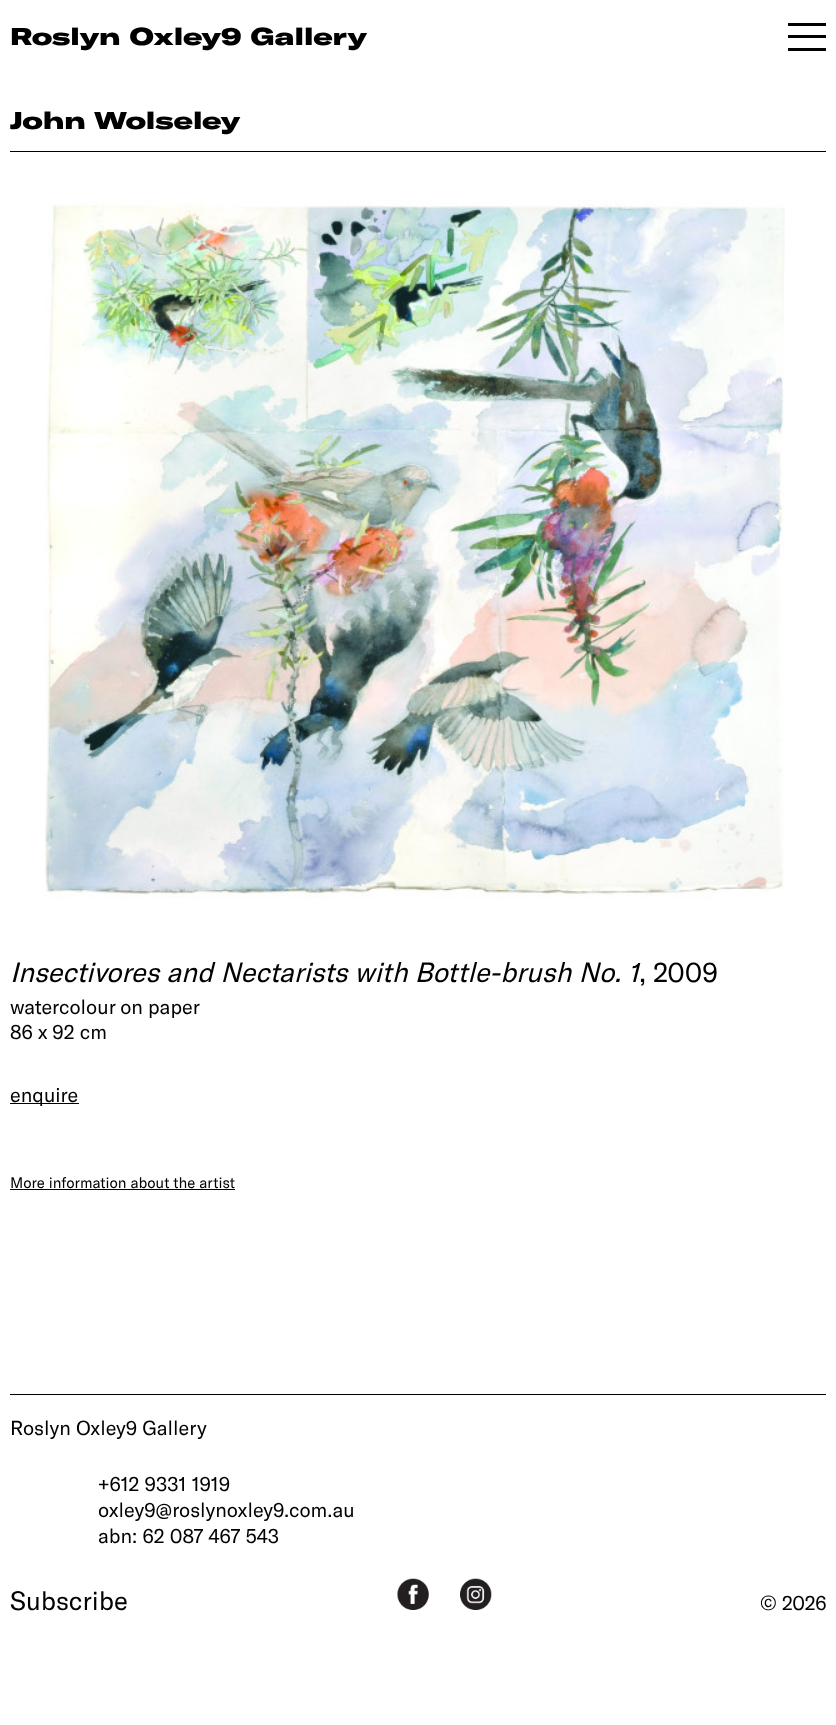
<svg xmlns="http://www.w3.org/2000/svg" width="836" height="1725">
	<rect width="100%" height="100%" fill="#FFFFFF" />
	<text x="10" y="45" font-family="GT America" font-size="24" font-weight="900" fill="#000000">Roslyn Oxley9 Gallery</text>
	<rect x="788" y="23" width="38" height="3" fill="#000000" />
	<rect x="788" y="35" width="38" height="3" fill="#000000" />
	<rect x="788" y="48" width="38" height="3" fill="#000000" />
	<rect x="10" y="151" width="816" height="1" fill="#000000" />
	<text x="10" y="129" font-family="GT America" font-size="24" font-weight="900" fill="#000000">John Wolseley</text>
	<image x="44" y="199" width="741" height="700" href="assets/img1.png" />
	<text x="10" y="982" font-family="GT America" font-size="27.5" font-style="italic" fill="#000000">Insectivores and Nectarists with Bottle-brush No. 1</text>
	<text x="639" y="982" font-family="GT America" font-size="27.5" fill="#000000">, 2009</text>
	<g font-family="GT America" font-size="20" fill="#000000">
		<text x="10" y="1014">watercolour on paper</text>
		<text x="10" y="1039">86 x 92 cm</text>
	</g>
	<rect x="10" y="1103" width="69" height="1" fill="#000000" />
	<text x="10" y="1102" font-family="GT America" font-size="20" fill="#000000">enquire</text>
	<text x="10" y="1188" font-family="GT America" font-size="15" fill="#000000">More information about the artist</text>
	<rect x="10" y="1189" width="225" height="1" fill="#000000" />
	<rect x="10" y="1394" width="816" height="1" fill="#000000" />
	<g font-family="GT America" font-size="20" fill="#000000">
		<text x="10" y="1435">Roslyn Oxley9 Gallery</text>
		<text x="98" y="1491">+612 9331 1919</text>
		<text x="98" y="1517">oxley9@roslynoxley9.com.au</text>
		<text x="98" y="1543">abn: 62 087 467 543</text>
	</g>
	<text x="10" y="1610" font-family="GT America" font-size="26" fill="#000000">Subscribe</text>
	<image x="397" y="1578" width="32" height="32" href="assets/img2.png" />
	<image x="460" y="1578" width="32" height="32" href="assets/img3.png" />
	<text x="760" y="1610" font-family="GT America" font-size="20" fill="#000000">© 2026</text>
</svg>
